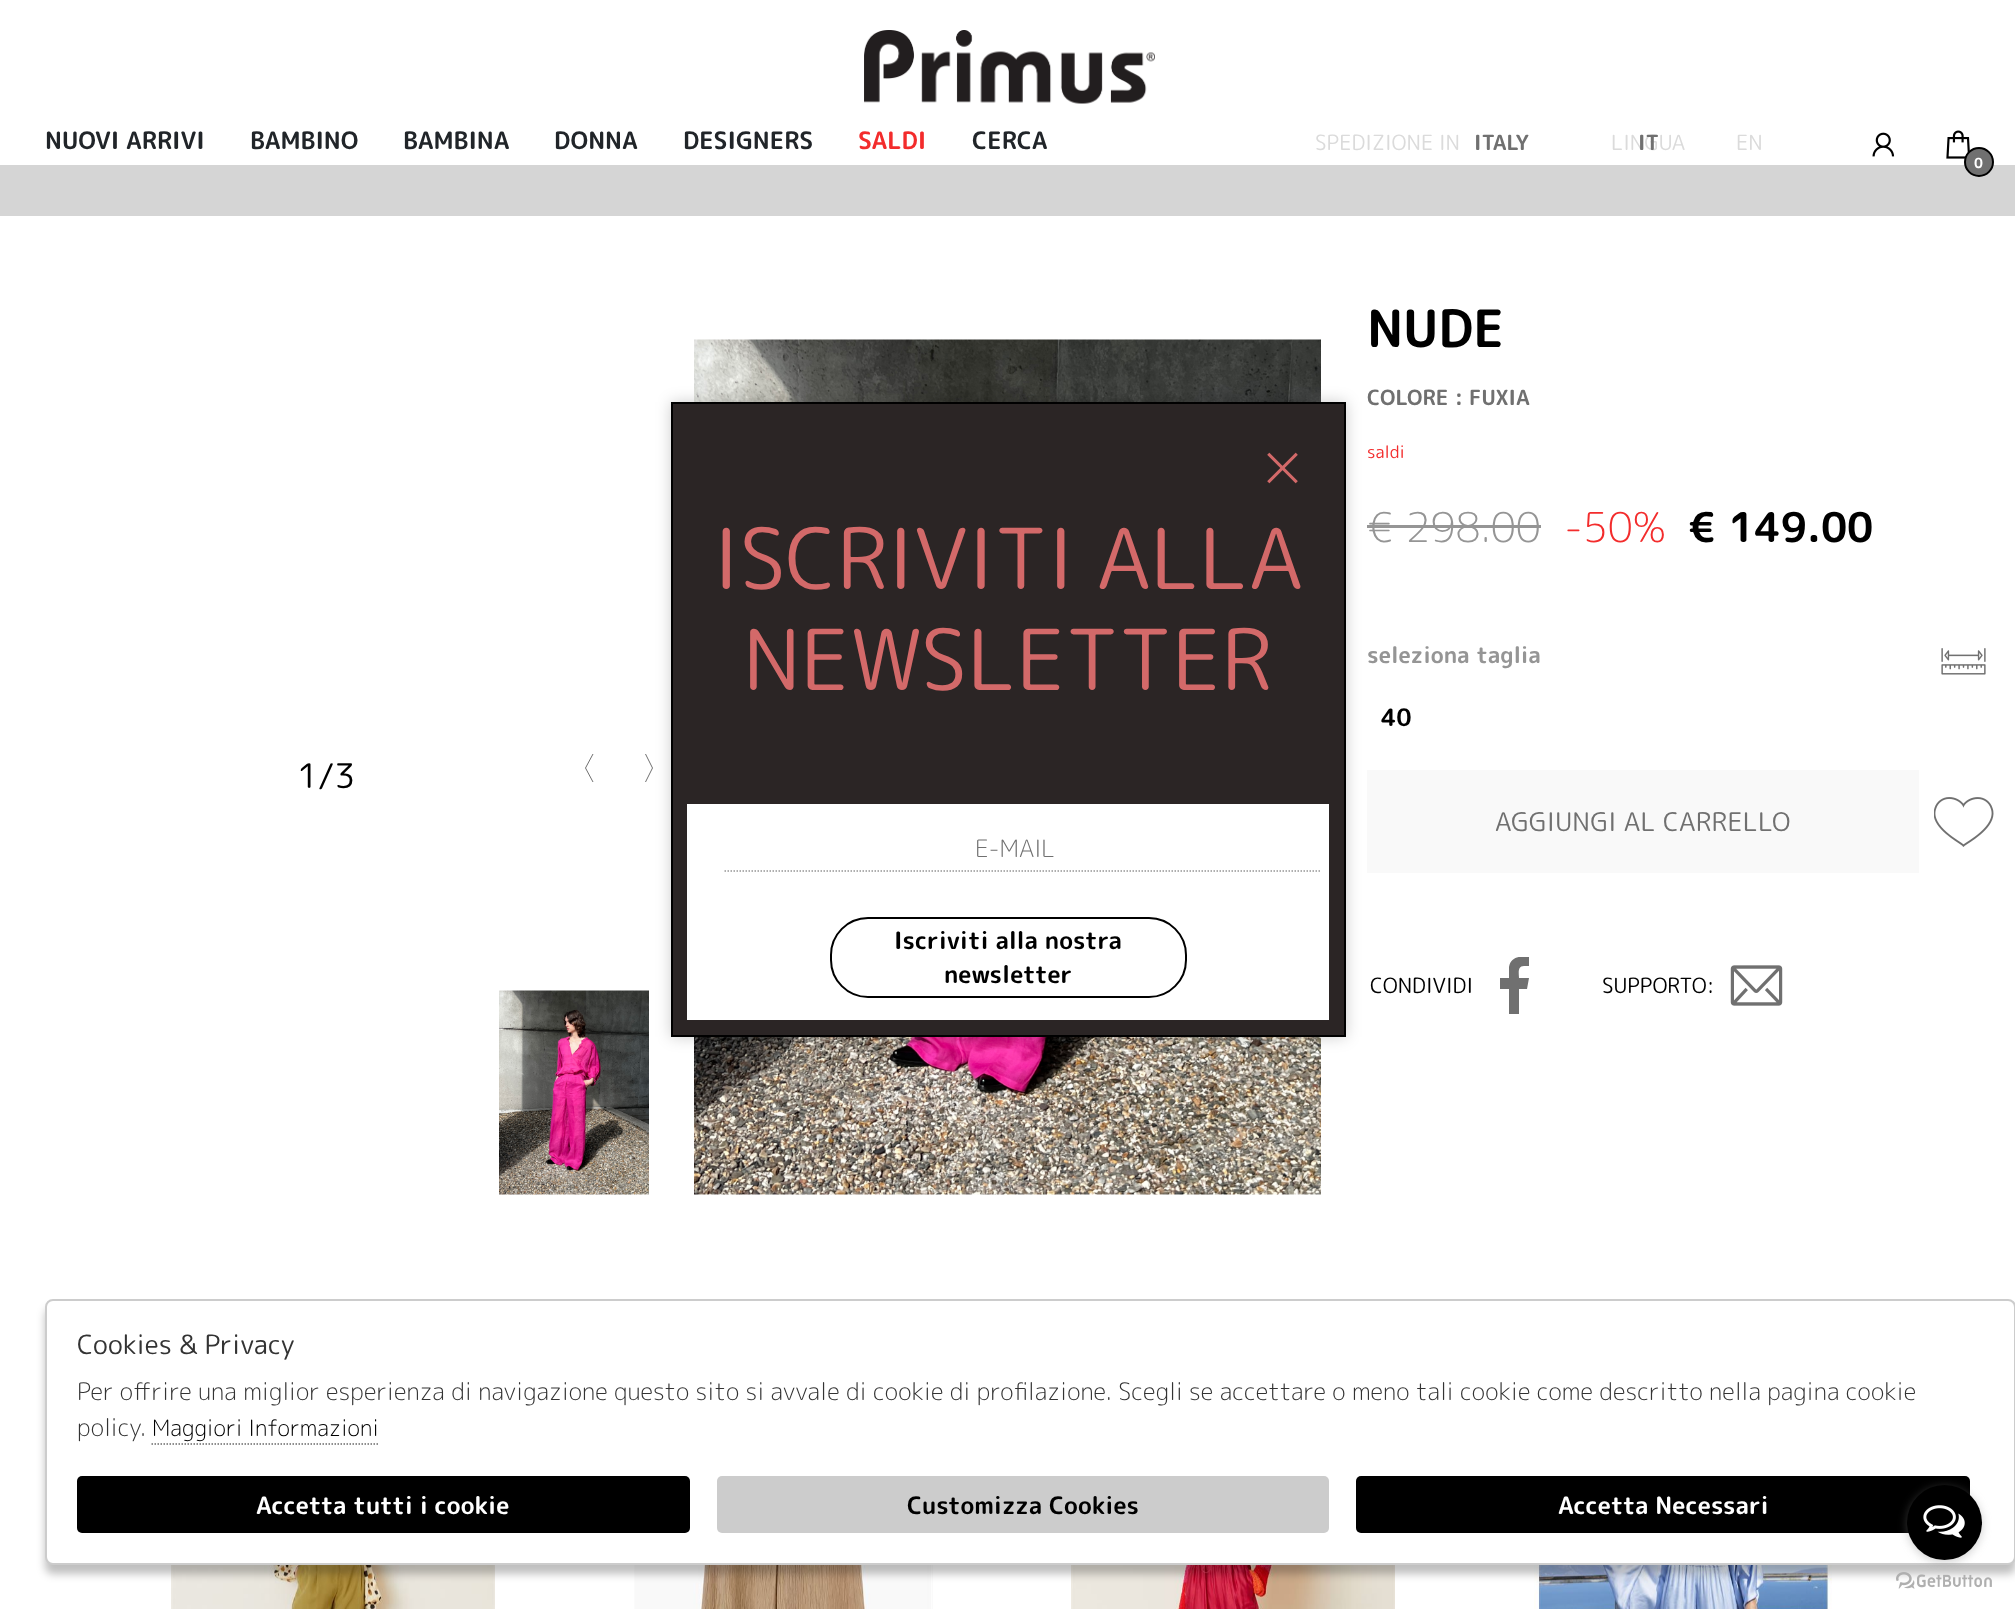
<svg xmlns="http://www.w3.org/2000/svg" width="2015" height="1609">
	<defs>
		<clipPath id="clip1"><rect x="1500" y="957" width="30" height="57" /></clipPath>
	</defs>
	<rect width="100%" height="100%" fill="#FFFFFF" />
	<image x="864" y="30" width="291" height="74" href="assets/img1.png" />
	<g font-family="'Rounded Mplus 1c Bold'" font-size="24" font-weight="700" fill="#212529">
		<text x="45" y="149">NUOVI ARRIVI</text>
		<text x="250" y="149">BAMBINO</text>
		<text x="403" y="149">BAMBINA</text>
		<text x="554" y="149">DONNA</text>
		<text x="683" y="149">DESIGNERS</text>
	</g>
	<text x="858" y="149" font-family="'Rounded Mplus 1c Bold'" font-size="24" font-weight="700" fill="#F32C2C">SALDI</text>
	<text x="972" y="149" font-family="'Rounded Mplus 1c Bold'" font-size="24" font-weight="700" fill="#212529">CERCA</text>
	<text x="1315" y="150" font-family="'Rounded Mplus 1c'" font-size="21" fill="#DBDBDB">SPEDIZIONE IN</text>
	<text x="1474" y="150" font-family="'Rounded Mplus 1c Bold'" font-size="21" font-weight="700" fill="#707070">ITALY</text>
	<text x="1611" y="150" font-family="'Rounded Mplus 1c'" font-size="21" fill="#DBDBDB">LINGUA</text>
	<text x="1638" y="150" font-family="'Rounded Mplus 1c Bold'" font-size="21" font-weight="700" fill="#707070">IT</text>
	<text x="1736" y="150" font-family="'Rounded Mplus 1c'" font-size="21" fill="#DBDBDB">EN</text>
	<image x="1872" y="132" width="23" height="25" href="assets/img2.png" />
	<image x="1946" y="130" width="24" height="29" href="assets/img3.png" />
	<rect x="0" y="165" width="2015" height="51" fill="#D5D5D5" />
	<circle cx="1979" cy="162" r="14" fill="#707070" stroke="#000000" stroke-width="2" />
	<text x="1974" y="168" font-family="'Rounded Mplus 1c Bold'" font-size="14" font-weight="700" fill="#FFFFFF">0</text>
	<text x="297" y="788" font-family="'Rounded Mplus 1c'" font-size="34" fill="#000000">1/3</text>
	<path d="M593 782L585.5 768L593 754" fill="none" stroke="#707070" />
	<path d="M645.5 754L652.5 768L645.5 782" fill="none" stroke="#707070" />
	<image x="499" y="990" width="150" height="205" href="assets/img4.png" />
	<image x="694" y="339" width="627" height="856" href="assets/img5.png" />
	<text x="1367" y="347" font-family="'Rounded Mplus 1c Bold'" font-size="51.5" font-weight="700" fill="#000000">NUDE</text>
	<text x="1367" y="405" font-family="'Rounded Mplus 1c Bold'" font-size="21" font-weight="700" fill="#707070">COLORE : FUXIA</text>
	<text x="1367" y="458" font-family="'Rounded Mplus 1c'" font-size="17" fill="#F32C2C">saldi</text>
	<text x="1367" y="542" font-family="'Rounded Mplus 1c'" font-size="41" font-weight="300" fill="#959595">€ 298.00</text>
	<rect x="1367" y="525" width="174" height="3" fill="#959595" />
	<text x="1564" y="542" font-family="'Rounded Mplus 1c'" font-size="41" font-weight="300" fill="#F32C2C">-50%</text>
	<text x="1688" y="542" font-family="'Rounded Mplus 1c Bold'" font-size="41" font-weight="700" fill="#000000">€ 149.00</text>
	<text x="1367" y="663" font-family="'Rounded Mplus 1c Bold'" font-size="22.5" font-weight="700" fill="#959595">seleziona taglia</text>
	<image x="1941" y="648" width="45" height="27" href="assets/img6.png" />
	<text x="1381" y="726" font-family="'Rounded Mplus 1c Bold'" font-size="24" font-weight="700" fill="#000000">40</text>
	<rect x="1367" y="770" width="552" height="103" fill="#F9F9F9" />
	<text x="1495" y="831" font-family="'Rounded Mplus 1c'" font-size="25.75" letter-spacing="0.25" fill="#707070">AGGIUNGI AL CARRELLO</text>
	<image x="1934" y="797" width="60" height="50" href="assets/img7.png" />
	<text x="1370" y="993" font-family="'Rounded Mplus 1c'" font-size="21" fill="#000000">CONDIVIDI</text>
	<g clip-path="url(#clip1)">
		<path d="M1524 966H1529V957C1521 956 1511 956 1509 967V978H1500V989H1509V1014H1519V989H1527L1529 978H1519C1519 974 1517 966 1524 966Z" fill="#707070" />
	</g>
	<text x="1602" y="993" font-family="'Rounded Mplus 1c'" font-size="21" fill="#000000">SUPPORTO:</text>
	<image x="1730" y="965" width="53" height="41" href="assets/img8.png" />
	<image x="171" y="1565" width="324" height="44" href="assets/img9.png" />
	<image x="634" y="1565" width="299" height="44" href="assets/img10.png" />
	<image x="1071" y="1565" width="324" height="44" href="assets/img11.png" />
	<image x="1534" y="1565" width="298" height="44" href="assets/img12.png" />
	<rect x="671" y="402" width="675" height="635" fill="#000000" fill-opacity="0.2" filter="blur(7.5px)" />
	<rect x="672" y="403" width="673" height="633" fill="#2B2525" stroke="#000000" stroke-width="2" />
	<image x="1267" y="452" width="31" height="32" href="assets/img13.png" />
	<g font-family="'Rounded Mplus 1c'" font-size="84" fill="#D36969">
		<text x="713" y="589">ISCRIVITI ALLA</text>
		<text x="743" y="690">NEWSLETTER</text>
	</g>
	<rect x="687" y="804" width="642" height="216" fill="#FFFFFF" />
	<path d="M724.5 871H1321.5" fill="none" stroke="#959595" stroke-width="1.5" stroke-dasharray="1.5 1.5" />
	<text x="975" y="857" font-family="'Rounded Mplus 1c'" font-size="24" font-weight="300" fill="#707070">E-MAIL</text>
	<rect x="831" y="918" width="355" height="79" rx="37" fill="none" stroke="#000000" stroke-width="2" />
	<g font-family="'Rounded Mplus 1c Bold'" font-size="24" font-weight="700" fill="#000000">
		<text x="894" y="949">Iscriviti alla nostra</text>
		<text x="944" y="983">newsletter</text>
	</g>
	<rect x="45" y="1308" width="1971" height="266" rx="8" fill="#000000" fill-opacity="0.25" filter="blur(4.5px)" />
	<rect x="46" y="1300" width="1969" height="264" rx="7" fill="#FFFFFF" stroke="#CCCCCC" stroke-width="2" />
	<text x="77" y="1354" font-family="'Rounded Mplus 1c'" font-size="26.5" fill="#333333">Cookies &amp; Privacy</text>
	<g font-family="'Rounded Mplus 1c'" font-size="24" font-weight="300" fill="#333333">
		<text x="77" y="1400">Per offrire una miglior esperienza di navigazione questo sito si avvale di cookie di profilazione. Scegli se accettare o meno tali cookie come descritto nella pagina cookie</text>
		<text x="77" y="1436">policy.</text>
	</g>
	<text x="152" y="1436" font-family="'Rounded Mplus 1c'" font-size="22.5" font-weight="300" fill="#000000">Maggiori Informazioni</text>
	<path d="M151.5 1444H379.5" fill="none" stroke="#696969" stroke-width="1.5" stroke-dasharray="1.5 1.5" />
	<rect x="77" y="1476" width="613" height="57" rx="5" fill="#000000" />
	<text x="256" y="1514" font-family="'Rounded Mplus 1c Bold'" font-size="24" font-weight="700" fill="#FFFFFF">Accetta tutti i cookie</text>
	<rect x="717" y="1476" width="612" height="57" rx="5" fill="#CCCCCC" />
	<text x="907" y="1514" font-family="'Rounded Mplus 1c Bold'" font-size="24" font-weight="700" fill="#000000">Customizza Cookies</text>
	<rect x="1356" y="1476" width="614" height="57" rx="5" fill="#000000" />
	<text x="1558" y="1514" font-family="'Rounded Mplus 1c Bold'" font-size="24" font-weight="700" fill="#FFFFFF">Accetta Necessari</text>
	<image x="1896" y="1572" width="96" height="17" href="assets/img15.png" />
	<rect x="1907" y="1487" width="75" height="75" rx="37.5" fill="#888888" fill-opacity="0.4" filter="blur(5px)" />
	<circle cx="1944.5" cy="1522.5" r="37.5" fill="#000000" />
	<image x="1923" y="1505" width="42" height="33" href="assets/img14.png" />
</svg>
